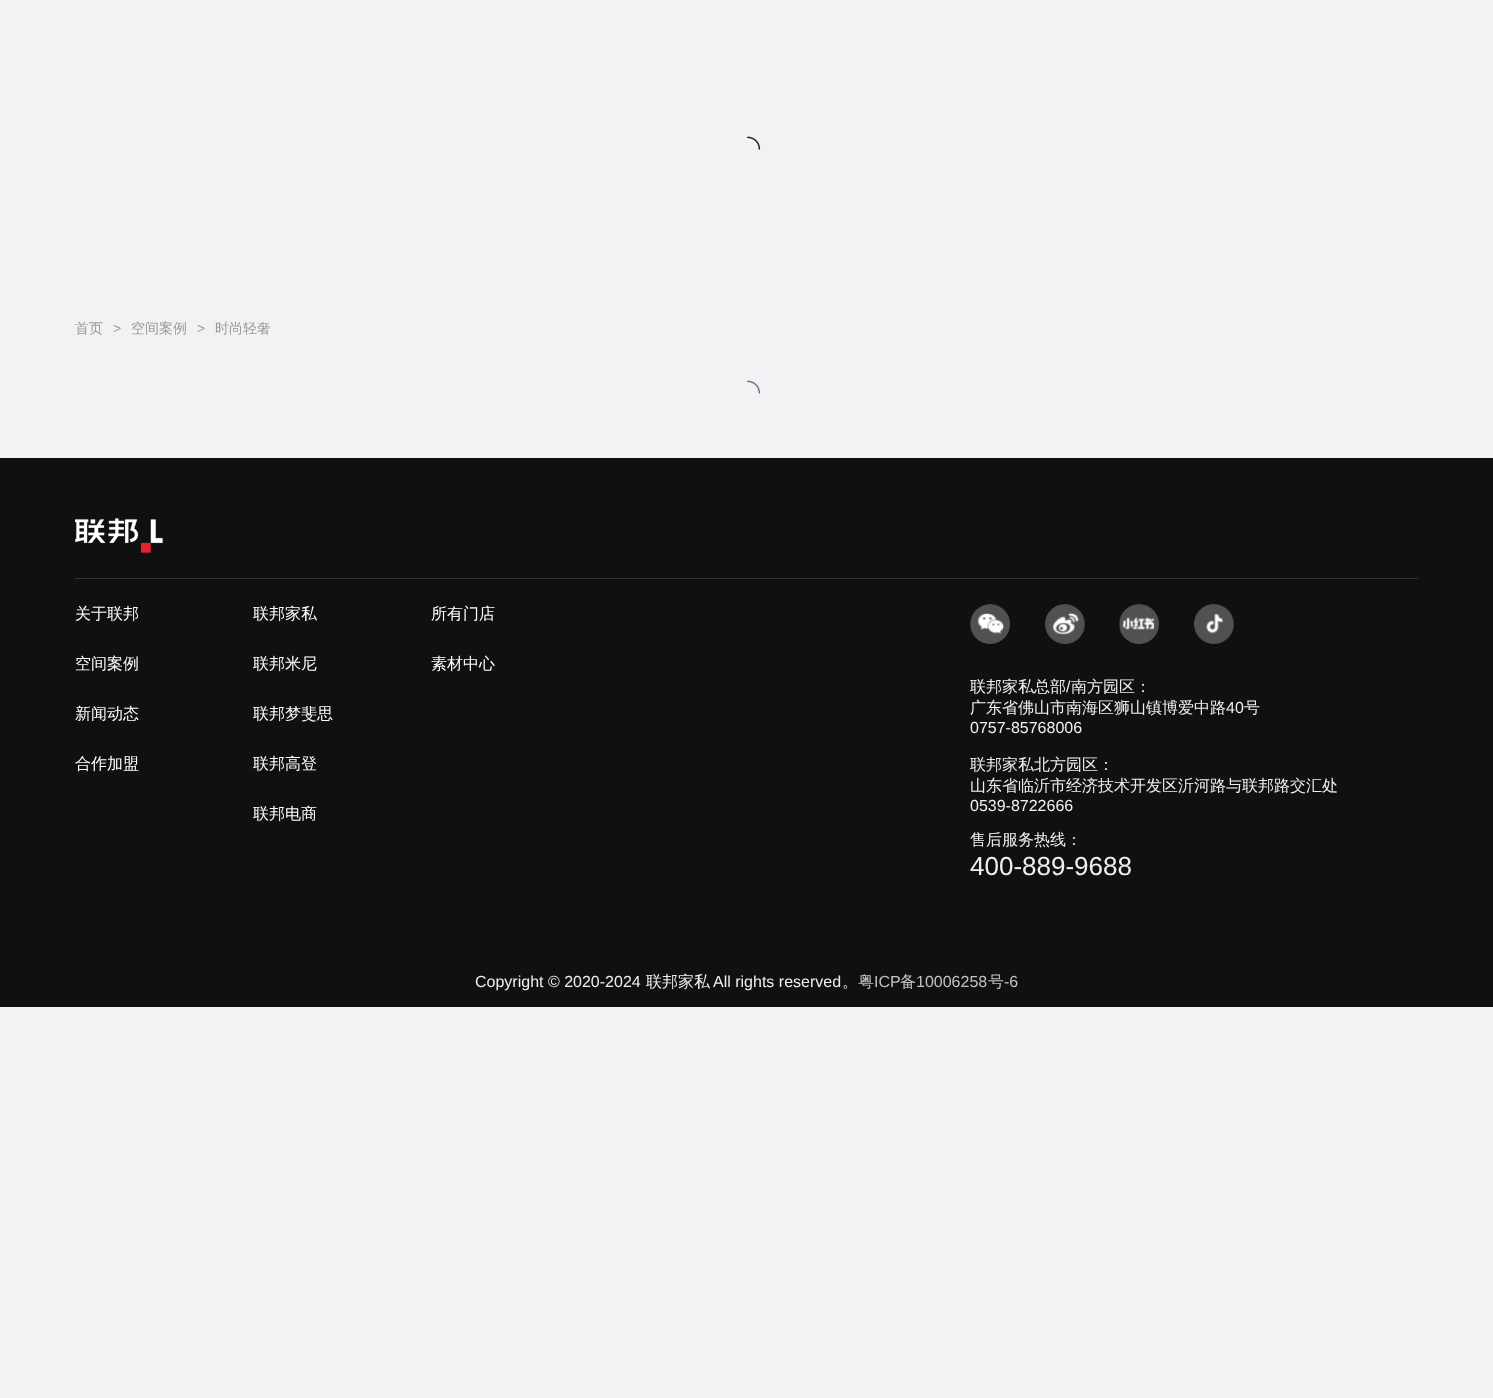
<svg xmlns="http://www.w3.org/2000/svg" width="1493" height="1398">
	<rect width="100%" height="100%" fill="#F1F2F4" />
	<image x="747" y="136" width="14" height="14" href="assets/img1.png" />
	<text x="75" y="333" font-family="WenQuanYi Zen Hei" font-size="14" font-weight="500" fill="#999999">首页</text>
	<text x="113" y="333" font-family="Liberation Sans" font-size="14" fill="#999999">&gt;</text>
	<text x="131" y="333" font-family="WenQuanYi Zen Hei" font-size="14" font-weight="500" fill="#999999">空间案例</text>
	<text x="197" y="333" font-family="Liberation Sans" font-size="14" fill="#999999">&gt;</text>
	<text x="215" y="333" font-family="WenQuanYi Zen Hei" font-size="14" font-weight="500" fill="#999999">时尚轻奢</text>
	<image x="747" y="380" width="14" height="14" href="assets/img2.png" />
	<rect x="0" y="458" width="1493" height="549" fill="#101010" />
	<rect x="75" y="578" width="1343" height="1" fill="#333333" />
	<image x="75" y="518" width="88" height="35" href="assets/img3.png" />
	<g font-family="WenQuanYi Zen Hei" font-size="16" font-weight="500" fill="#FFFFFF">
		<text x="75" y="619">关于联邦</text>
		<text x="75" y="669">空间案例</text>
		<text x="75" y="719">新闻动态</text>
		<text x="75" y="769">合作加盟</text>
		<text x="253" y="619">联邦家私</text>
		<text x="253" y="669">联邦米尼</text>
		<text x="253" y="719">联邦梦斐思</text>
		<text x="253" y="769">联邦高登</text>
		<text x="253" y="819">联邦电商</text>
		<text x="431" y="619">所有门店</text>
		<text x="431" y="669">素材中心</text>
	</g>
	<image x="970" y="604" width="40" height="40" href="assets/img4.png" />
	<image x="1045" y="604" width="40" height="40" href="assets/img5.png" />
	<image x="1119" y="604" width="40" height="40" href="assets/img6.png" />
	<image x="1194" y="604" width="40" height="40" href="assets/img7.png" />
	<text x="970" y="692" font-family="WenQuanYi Zen Hei" font-size="16" font-weight="500" fill="#EFEFEF">联邦家私总部</text>
	<text x="1066" y="692" font-family="Liberation Sans" font-size="16" fill="#EFEFEF">/</text>
	<g font-family="WenQuanYi Zen Hei" font-size="16" font-weight="500" fill="#EFEFEF">
		<text x="1071" y="692">南方园区：</text>
		<text x="970" y="713">广东省佛山市南海区狮山镇博爱中路</text>
	</g>
	<text x="1226" y="713" font-family="Liberation Sans" font-size="16" fill="#EFEFEF">40</text>
	<text x="1244" y="713" font-family="WenQuanYi Zen Hei" font-size="16" font-weight="500" fill="#EFEFEF">号</text>
	<text x="970" y="733" font-family="Liberation Sans" font-size="16" fill="#EFEFEF">0757-85768006</text>
	<g font-family="WenQuanYi Zen Hei" font-size="16" font-weight="500" fill="#EFEFEF">
		<text x="970" y="770">联邦家私北方园区：</text>
		<text x="970" y="791">山东省临沂市经济技术开发区沂河路与联邦路交汇处</text>
	</g>
	<text x="970" y="811" font-family="Liberation Sans" font-size="16" fill="#EFEFEF">0539-8722666</text>
	<text x="970" y="845" font-family="WenQuanYi Zen Hei" font-size="16" font-weight="500" fill="#EFEFEF">售后服务热线：</text>
	<text x="970" y="875" font-family="Liberation Sans" font-size="26" fill="#EFEFEF">400-889-9688</text>
	<text x="475" y="987" font-family="Liberation Sans" font-size="16" fill="#EFEFEF">Copyright © 2020-2024</text>
	<text x="646" y="987" font-family="WenQuanYi Zen Hei" font-size="16" font-weight="500" fill="#EFEFEF">联邦家私</text>
	<text x="713" y="987" font-family="Liberation Sans" font-size="16" fill="#EFEFEF">All rights reserved</text>
	<text x="842" y="987" font-family="WenQuanYi Zen Hei" font-size="16" font-weight="500" fill="#EFEFEF">。</text>
	<text x="858" y="987" font-family="WenQuanYi Zen Hei" font-size="16" font-weight="500" fill="#C2C2C2">粤</text>
	<text x="874" y="987" font-family="Liberation Sans" font-size="16" fill="#C2C2C2">ICP</text>
	<text x="900" y="987" font-family="WenQuanYi Zen Hei" font-size="16" font-weight="500" fill="#C2C2C2">备</text>
	<text x="916" y="987" font-family="Liberation Sans" font-size="16" fill="#C2C2C2">10006258</text>
	<text x="988" y="987" font-family="WenQuanYi Zen Hei" font-size="16" font-weight="500" fill="#C2C2C2">号</text>
	<text x="1004" y="987" font-family="Liberation Sans" font-size="16" fill="#C2C2C2">-6</text>
</svg>
